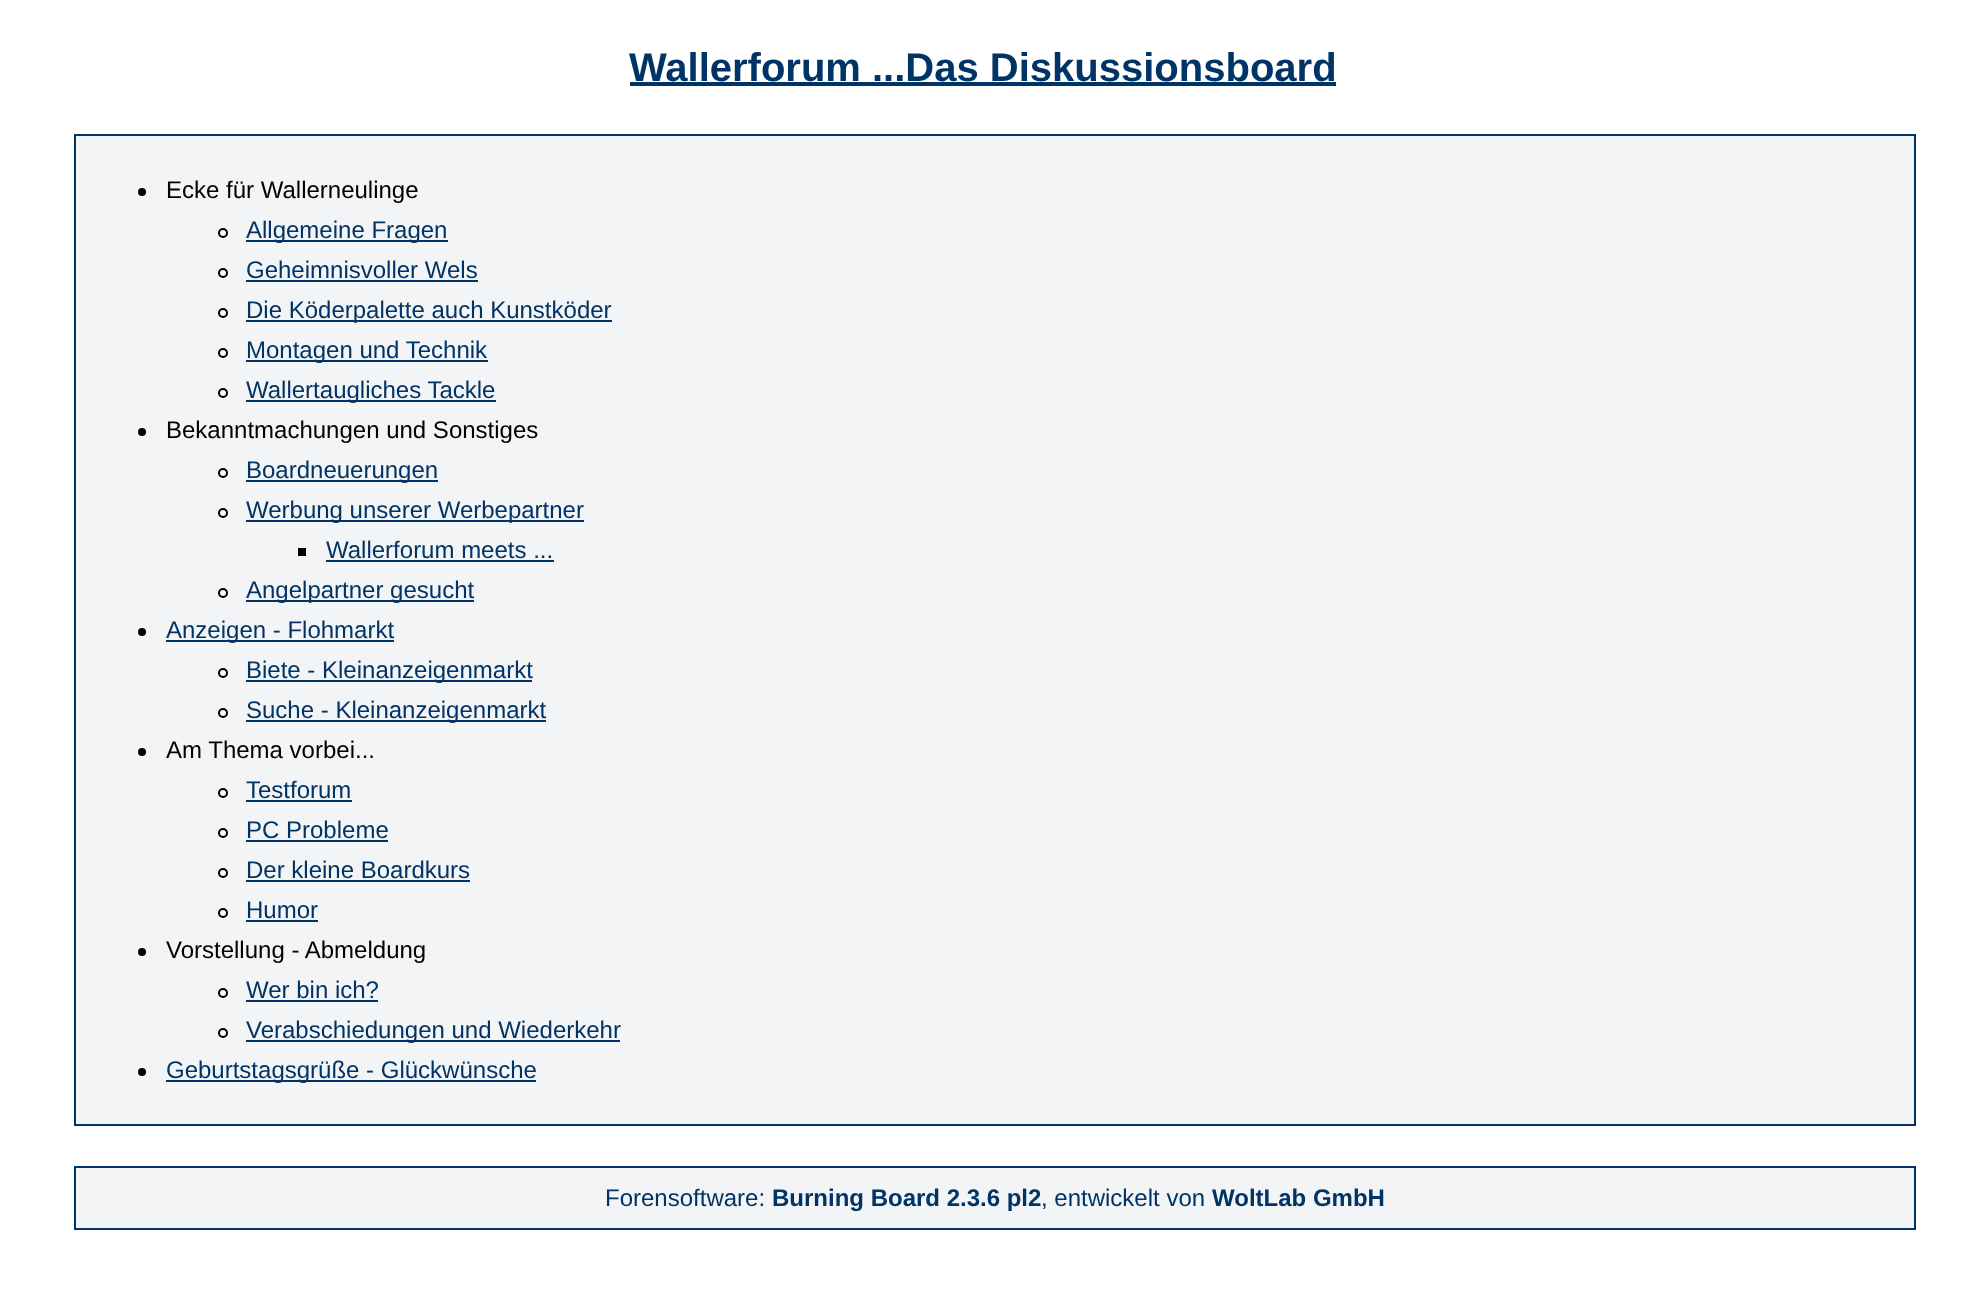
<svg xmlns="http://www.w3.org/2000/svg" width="1965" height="1291">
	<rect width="100%" height="100%" fill="#FFFFFF" />
	<text x="629" y="81" font-family="Liberation Sans" font-size="40" font-weight="700" fill="#003366">Wallerforum ...Das Diskussionsboard</text>
	<rect x="630" y="82" width="706" height="4" fill="#003366" />
	<rect x="75" y="135" width="1840" height="990" fill="#F3F4F5" stroke="#003366" stroke-width="2" />
	<circle cx="142" cy="192" r="4" fill="#000000" />
	<text x="166" y="198" font-family="Liberation Sans" font-size="24" fill="#000000">Ecke für Wallerneulinge</text>
	<circle cx="223" cy="233" r="4" fill="none" stroke="#000000" stroke-width="2" />
	<rect x="246" y="240" width="202" height="2" fill="#003366" />
	<text x="246" y="238" font-family="Liberation Sans" font-size="24" fill="#003366">Allgemeine Fragen</text>
	<circle cx="223" cy="273" r="4" fill="none" stroke="#000000" stroke-width="2" />
	<text x="246" y="278" font-family="Liberation Sans" font-size="24" fill="#003366">Geheimnisvoller Wels</text>
	<rect x="246" y="280" width="232" height="2" fill="#003366" />
	<circle cx="223" cy="313" r="4" fill="none" stroke="#000000" stroke-width="2" />
	<rect x="246" y="320" width="366" height="2" fill="#003366" />
	<text x="246" y="318" font-family="Liberation Sans" font-size="24" fill="#003366">Die Köderpalette auch Kunstköder</text>
	<circle cx="223" cy="353" r="4" fill="none" stroke="#000000" stroke-width="2" />
	<rect x="246" y="360" width="242" height="2" fill="#003366" />
	<text x="246" y="358" font-family="Liberation Sans" font-size="24" fill="#003366">Montagen und Technik</text>
	<circle cx="223" cy="393" r="4" fill="none" stroke="#000000" stroke-width="2" />
	<rect x="246" y="400" width="250" height="2" fill="#003366" />
	<text x="246" y="398" font-family="Liberation Sans" font-size="24" fill="#003366">Wallertaugliches Tackle</text>
	<circle cx="142" cy="432" r="4" fill="#000000" />
	<text x="166" y="438" font-family="Liberation Sans" font-size="24" fill="#000000">Bekanntmachungen und Sonstiges</text>
	<circle cx="223" cy="473" r="4" fill="none" stroke="#000000" stroke-width="2" />
	<rect x="246" y="480" width="192" height="2" fill="#003366" />
	<text x="246" y="478" font-family="Liberation Sans" font-size="24" fill="#003366">Boardneuerungen</text>
	<circle cx="223" cy="513" r="4" fill="none" stroke="#000000" stroke-width="2" />
	<rect x="246" y="520" width="338" height="2" fill="#003366" />
	<text x="246" y="518" font-family="Liberation Sans" font-size="24" fill="#003366">Werbung unserer Werbepartner</text>
	<rect x="298" y="548" width="8" height="8" fill="#000000" />
	<text x="326" y="558" font-family="Liberation Sans" font-size="24" fill="#003366">Wallerforum meets ...</text>
	<rect x="326" y="560" width="228" height="2" fill="#003366" />
	<circle cx="223" cy="593" r="4" fill="none" stroke="#000000" stroke-width="2" />
	<rect x="246" y="600" width="228" height="2" fill="#003366" />
	<text x="246" y="598" font-family="Liberation Sans" font-size="24" fill="#003366">Angelpartner gesucht</text>
	<circle cx="142" cy="632" r="4" fill="#000000" />
	<rect x="166" y="640" width="228" height="2" fill="#003366" />
	<text x="166" y="638" font-family="Liberation Sans" font-size="24" fill="#003366">Anzeigen - Flohmarkt</text>
	<circle cx="223" cy="673" r="4" fill="none" stroke="#000000" stroke-width="2" />
	<rect x="246" y="680" width="286" height="2" fill="#003366" />
	<text x="246" y="678" font-family="Liberation Sans" font-size="24" fill="#003366">Biete - Kleinanzeigenmarkt</text>
	<circle cx="223" cy="713" r="4" fill="none" stroke="#000000" stroke-width="2" />
	<rect x="246" y="720" width="300" height="2" fill="#003366" />
	<text x="246" y="718" font-family="Liberation Sans" font-size="24" fill="#003366">Suche - Kleinanzeigenmarkt</text>
	<circle cx="142" cy="752" r="4" fill="#000000" />
	<text x="166" y="758" font-family="Liberation Sans" font-size="24" fill="#000000">Am Thema vorbei...</text>
	<circle cx="223" cy="793" r="4" fill="none" stroke="#000000" stroke-width="2" />
	<text x="246" y="798" font-family="Liberation Sans" font-size="24" fill="#003366">Testforum</text>
	<rect x="246" y="800" width="106" height="2" fill="#003366" />
	<circle cx="223" cy="833" r="4" fill="none" stroke="#000000" stroke-width="2" />
	<text x="246" y="838" font-family="Liberation Sans" font-size="24" fill="#003366">PC Probleme</text>
	<rect x="246" y="840" width="142" height="2" fill="#003366" />
	<circle cx="223" cy="873" r="4" fill="none" stroke="#000000" stroke-width="2" />
	<text x="246" y="878" font-family="Liberation Sans" font-size="24" fill="#003366">Der kleine Boardkurs</text>
	<rect x="246" y="880" width="224" height="2" fill="#003366" />
	<circle cx="223" cy="913" r="4" fill="none" stroke="#000000" stroke-width="2" />
	<text x="246" y="918" font-family="Liberation Sans" font-size="24" fill="#003366">Humor</text>
	<rect x="246" y="920" width="72" height="2" fill="#003366" />
	<circle cx="142" cy="952" r="4" fill="#000000" />
	<text x="166" y="958" font-family="Liberation Sans" font-size="24" fill="#000000">Vorstellung - Abmeldung</text>
	<circle cx="223" cy="993" r="4" fill="none" stroke="#000000" stroke-width="2" />
	<text x="246" y="998" font-family="Liberation Sans" font-size="24" fill="#003366">Wer bin ich?</text>
	<rect x="246" y="1000" width="132" height="2" fill="#003366" />
	<circle cx="223" cy="1033" r="4" fill="none" stroke="#000000" stroke-width="2" />
	<rect x="246" y="1040" width="374" height="2" fill="#003366" />
	<text x="246" y="1038" font-family="Liberation Sans" font-size="24" fill="#003366">Verabschiedungen und Wiederkehr</text>
	<circle cx="142" cy="1072" r="4" fill="#000000" />
	<rect x="166" y="1080" width="370" height="2" fill="#003366" />
	<text x="166" y="1078" font-family="Liberation Sans" font-size="24" fill="#003366">Geburtstagsgrüße - Glückwünsche</text>
	<rect x="75" y="1167" width="1840" height="62" fill="#F3F4F5" stroke="#003366" stroke-width="2" />
	<text x="605" y="1206" font-family="Liberation Sans" font-size="24" fill="#003366">Forensoftware:</text>
	<text x="772" y="1206" font-family="Liberation Sans" font-size="24" font-weight="700" fill="#003366">Burning Board 2.3.6 pl2</text>
	<text x="1041" y="1206" font-family="Liberation Sans" font-size="24" fill="#003366">, entwickelt von</text>
	<text x="1212" y="1206" font-family="Liberation Sans" font-size="24" font-weight="700" fill="#003366">WoltLab GmbH</text>
</svg>
